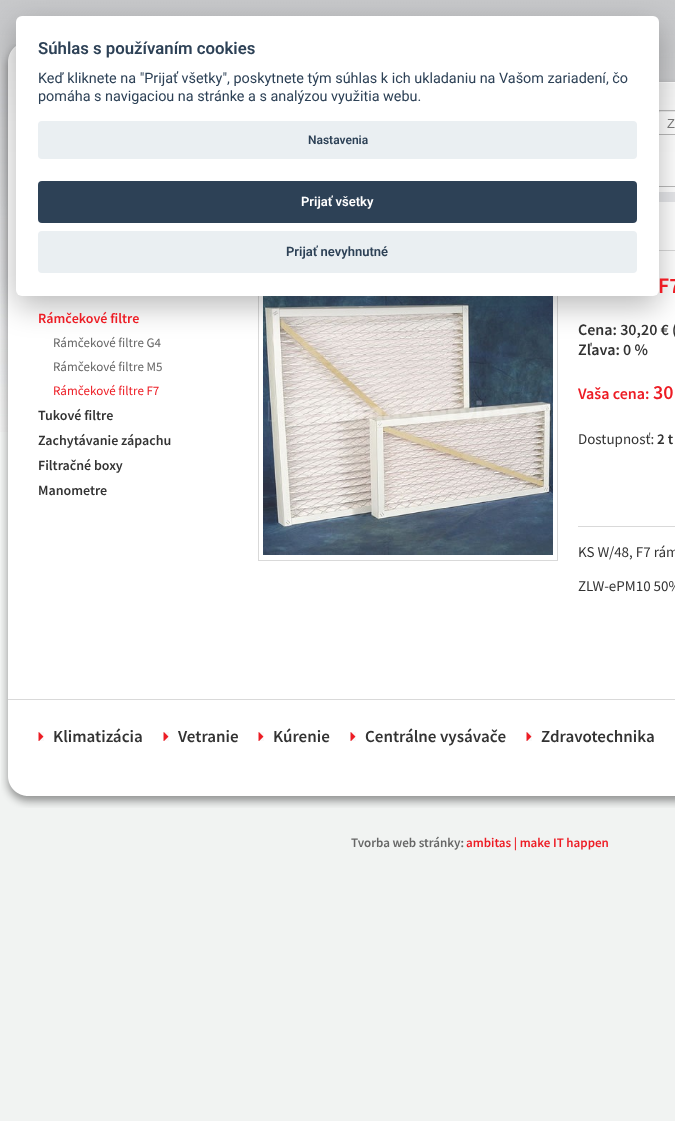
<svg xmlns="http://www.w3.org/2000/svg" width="675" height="1121">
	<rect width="100%" height="100%" fill="#F1F3F2" />
	<image x="0" y="0" width="675" height="432" href="assets/img1.png" />
	<image x="1" y="44" width="674" height="158" href="assets/img2.png" />
	<image x="659" y="110" width="16" height="25" href="assets/img3.png" />
	<image x="659" y="186" width="16" height="16" href="assets/img4.png" />
	<image x="1" y="202" width="674" height="572" href="assets/img5.png" />
	<rect x="659" y="250" width="16" height="1" fill="#D9D9D9" />
	<rect x="258.5" y="271.5" width="299" height="289" fill="none" stroke="#D9D9D9" />
	<image x="263" y="296" width="290" height="259" href="assets/img6.png" />
	<rect x="16" y="26" width="643" height="280" rx="6" fill="#020203" fill-opacity="0.28" filter="blur(15px)" />
	<rect x="16" y="16" width="643" height="280" rx="6" fill="#FFFFFF" />
	<text x="38" y="54" font-family="Roboto" font-size="16.75" font-weight="600" fill="#2D4156">Súhlas s používaním cookies</text>
	<g font-family="Roboto" font-size="14.4" fill="#2D4156">
		<text x="38" y="83">Keď kliknete na "Prijať všetky", poskytnete tým súhlas k ich ukladaniu na Vašom zariadení, čo</text>
		<text x="38" y="101">pomáha s navigaciou na stránke a s analýzou využitia webu.</text>
	</g>
	<rect x="38" y="121" width="599" height="38" rx="4" fill="#EAEFF2" />
	<text x="308" y="144" font-family="Roboto" font-size="12" font-weight="600" fill="#2D4156">Nastavenia</text>
	<rect x="38" y="181" width="599" height="42" rx="4" fill="#2D4156" />
	<text x="301" y="206" font-family="Roboto" font-size="13" font-weight="600" fill="#FFFFFF">Prijať všetky</text>
	<rect x="38" y="231" width="599" height="42" rx="4" fill="#EAEFF2" />
	<text x="286" y="256" font-family="Roboto" font-size="13" font-weight="600" fill="#2D4156">Prijať nevyhnutné</text>
	<text x="667" y="128" font-family="Liberation Sans" font-size="13" fill="#757575">Z</text>
	<text x="38" y="323" font-family="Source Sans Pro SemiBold" font-size="14" font-weight="600" fill="#ED1C24">Rámčekové filtre</text>
	<g font-family="Source Sans Pro" font-size="13" fill="#666666">
		<text x="53" y="347">Rámčekové filtre G4</text>
		<text x="53" y="371">Rámčekové filtre M5</text>
	</g>
	<text x="53" y="395" font-family="Source Sans Pro" font-size="13" fill="#ED1C24">Rámčekové filtre F7</text>
	<g font-family="Source Sans Pro SemiBold" font-size="14" font-weight="600" fill="#333333">
		<text x="38" y="420">Tukové filtre</text>
		<text x="38" y="445">Zachytávanie zápachu</text>
		<text x="38" y="470">Filtračné boxy</text>
		<text x="38" y="495">Manometre</text>
	</g>
	<text x="658" y="293" font-family="Source Sans Pro SemiBold" font-size="22" font-weight="600" fill="#ED1C24">F7</text>
	<g font-family="Source Sans Pro SemiBold" font-size="16" font-weight="600" fill="#333333">
		<text x="578" y="335">Cena: 30,20 € (</text>
		<text x="578" y="355">Zľava: 0 %</text>
	</g>
	<text x="578" y="399" font-family="Source Sans Pro SemiBold" font-size="16" font-weight="600" fill="#ED1C24">Vaša cena:</text>
	<text x="653" y="399" font-family="Source Sans Pro SemiBold" font-size="20" font-weight="600" fill="#ED1C24">30</text>
	<text x="578" y="444" font-family="Source Sans Pro" font-size="15" fill="#333333">Dostupnosť:</text>
	<text x="657" y="444" font-family="Source Sans Pro SemiBold" font-size="15" font-weight="600" fill="#333333">2 t</text>
	<rect x="578" y="526" width="97" height="1" fill="#D9D9D9" />
	<g font-family="Source Sans Pro" font-size="15" fill="#333333">
		<text x="578" y="557">KS W/48, F7 rám</text>
		<text x="578" y="591">ZLW-ePM10 50%</text>
	</g>
	<rect x="8" y="699" width="667" height="1" fill="#D9D9D9" />
	<image x="38" y="732" width="6" height="9" href="assets/img7.png" />
	<text x="53" y="742" font-family="Source Sans Pro SemiBold" font-size="17" font-weight="600" fill="#333333">Klimatizácia</text>
	<image x="163" y="732" width="6" height="9" href="assets/img7.png" />
	<text x="178" y="742" font-family="Source Sans Pro SemiBold" font-size="17" font-weight="600" fill="#333333">Vetranie</text>
	<image x="258" y="732" width="6" height="9" href="assets/img7.png" />
	<text x="273" y="742" font-family="Source Sans Pro SemiBold" font-size="17" font-weight="600" fill="#333333">Kúrenie</text>
	<image x="350" y="732" width="6" height="9" href="assets/img7.png" />
	<text x="365" y="742" font-family="Source Sans Pro SemiBold" font-size="17" font-weight="600" fill="#333333">Centrálne vysávače</text>
	<image x="526" y="732" width="6" height="9" href="assets/img7.png" />
	<text x="541" y="742" font-family="Source Sans Pro SemiBold" font-size="17" font-weight="600" fill="#333333">Zdravotechnika</text>
	<image x="1" y="774" width="674" height="34" href="assets/img8.png" />
	<text x="351" y="847" font-family="Source Sans Pro SemiBold" font-size="13" font-weight="600" fill="#666666">Tvorba web stránky:</text>
	<text x="466" y="847" font-family="Source Sans Pro SemiBold" font-size="13" font-weight="600" fill="#ED1C24">ambitas | make IT happen</text>
</svg>
